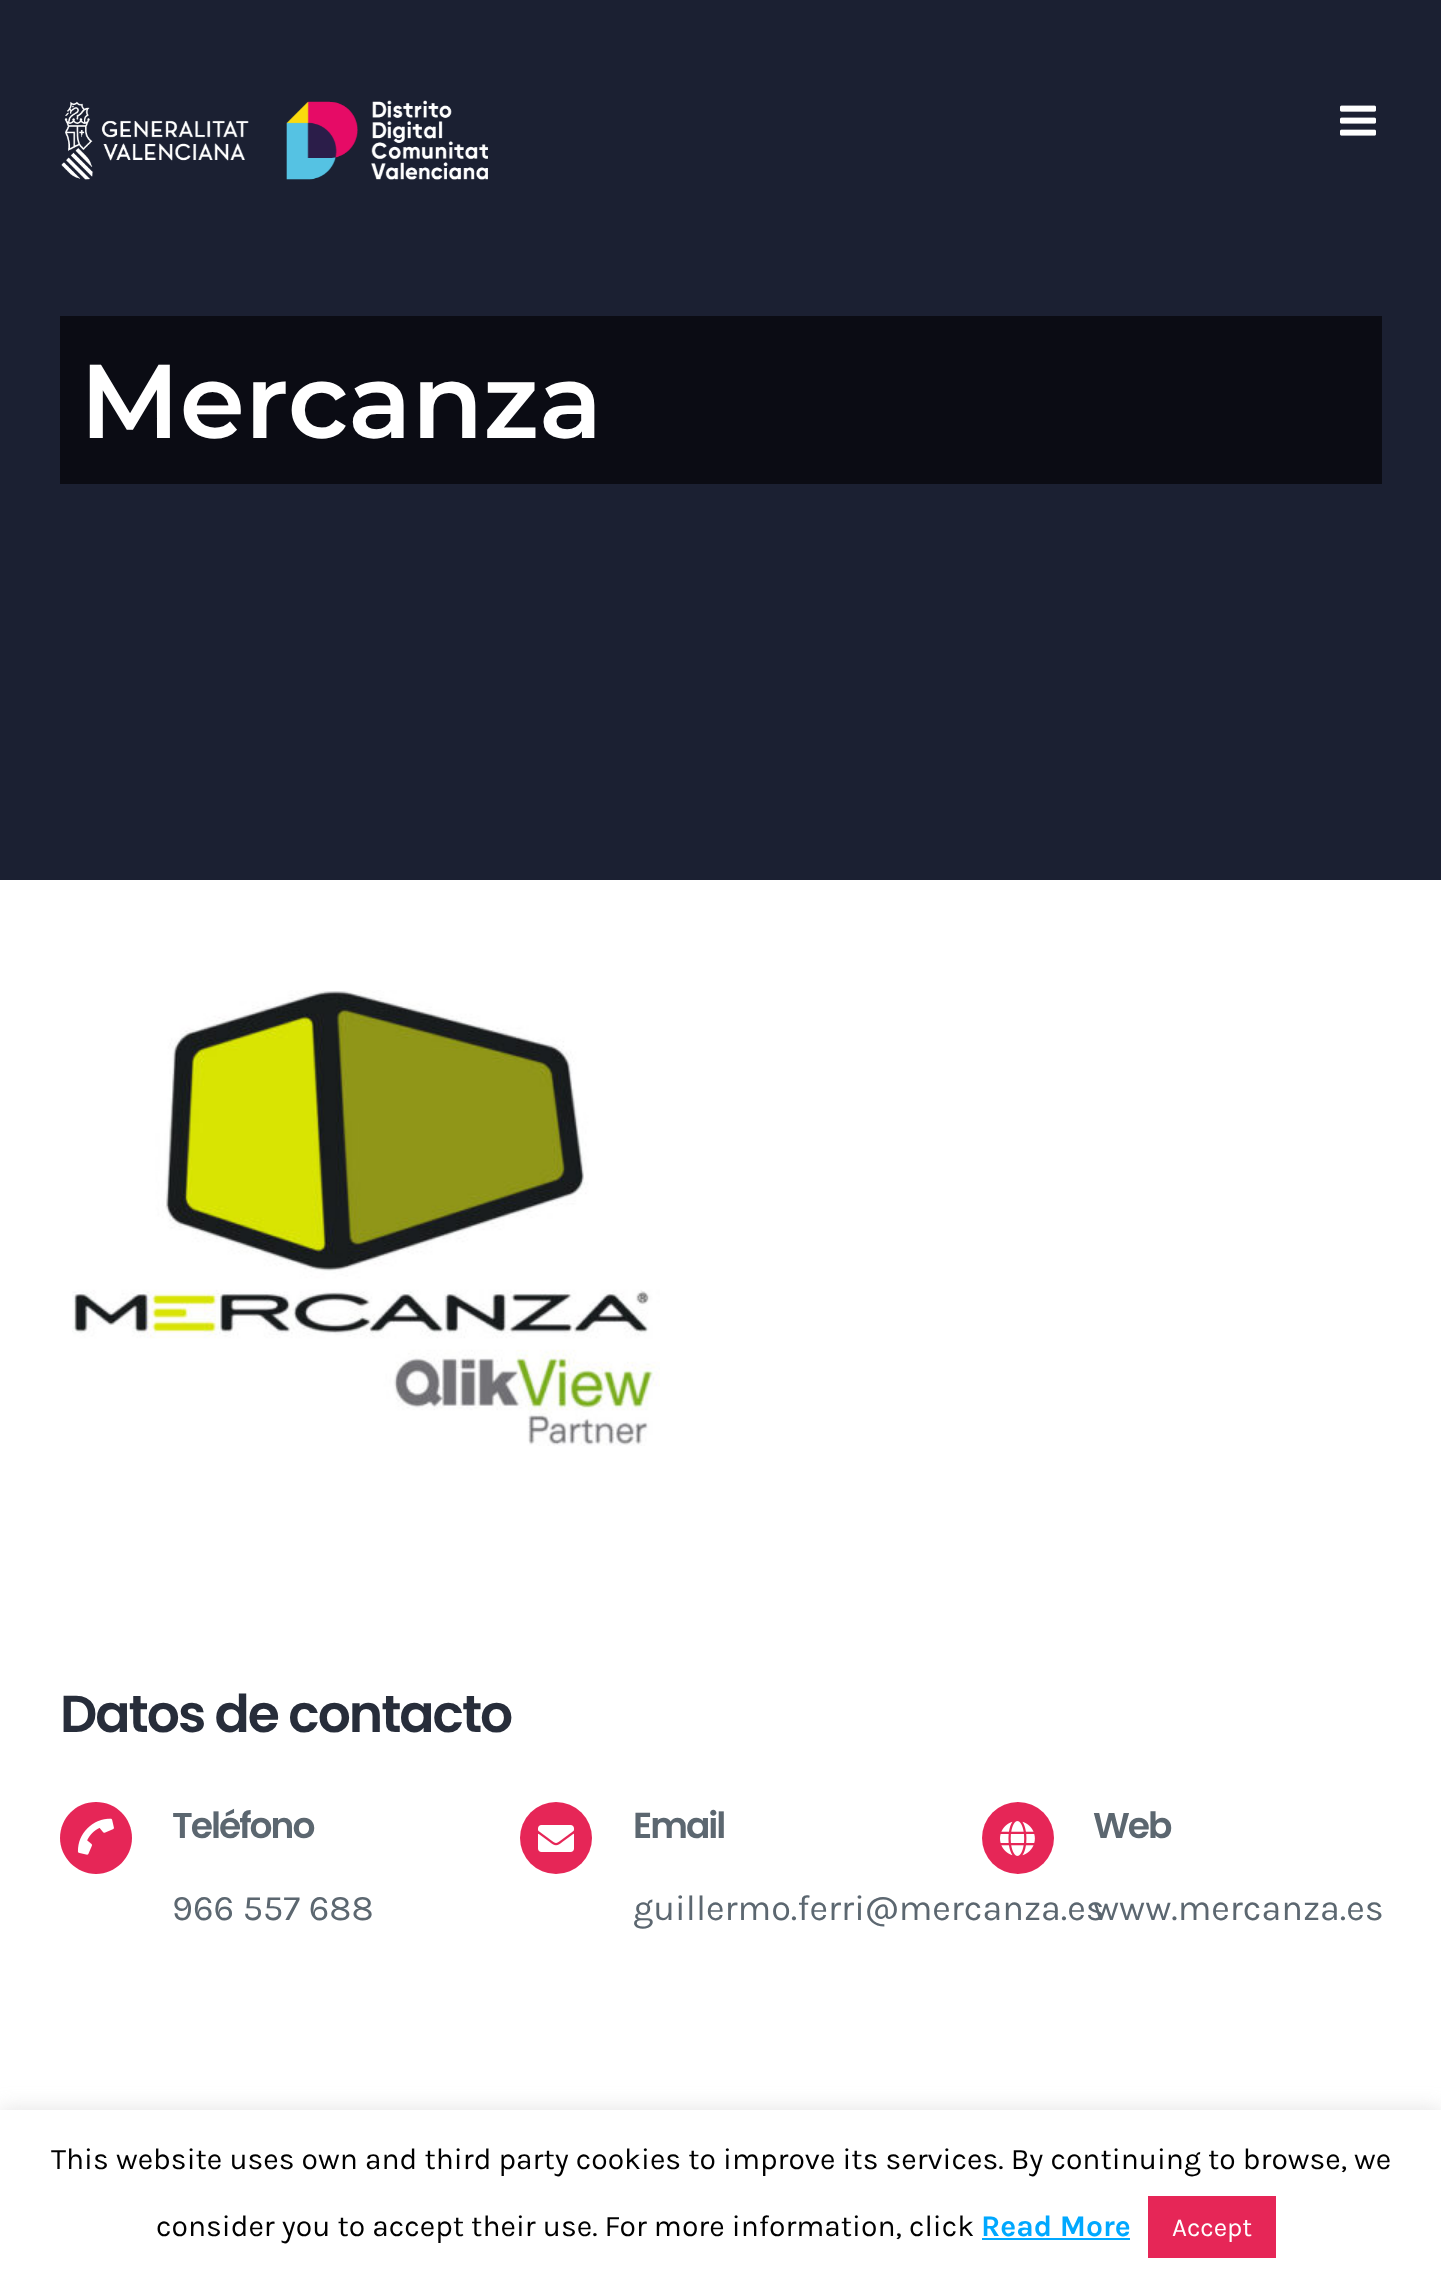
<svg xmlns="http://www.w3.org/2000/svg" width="1441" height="2291">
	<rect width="100%" height="100%" fill="#FFFFFF" />
	<rect x="0" y="0" width="1441" height="880" fill="#1B2032" />
	<image x="61" y="100" width="427" height="80" href="assets/img1.png" />
	<image x="1340" y="105" width="36" height="31" href="assets/img2.png" />
	<rect x="60" y="316" width="1322" height="168" fill="#0B0C14" />
	<text x="80" y="438" font-family="Montserrat" font-size="104.5" font-weight="600" fill="#FFFFFF">Mercanza</text>
	<image x="72" y="990" width="588" height="456" href="assets/img3.png" />
	<text x="60" y="1732" font-family="Poppins" font-size="52" font-weight="600" letter-spacing="-2" fill="#272D3A">Datos de contacto</text>
	<path d="M96 1874C76 1874 60 1857 60 1838C60 1818 76 1802 96 1802C116 1802 132 1818 132 1838C132 1857 116 1874 96 1874Z" fill="#E62657" />
	<image x="77" y="1818" width="37" height="37" href="assets/img4.png" />
	<text x="172" y="1838" font-family="Poppins" font-size="36" font-weight="600" letter-spacing="-2" fill="#5C6770">Teléfono</text>
	<text x="172" y="1920" font-family="Karla" font-size="36" fill="#5C6770">966 557 688</text>
	<circle cx="556" cy="1838" r="36" fill="#E62657" />
	<image x="538" y="1825" width="36" height="27" href="assets/img5.png" />
	<text x="633" y="1838" font-family="Poppins" font-size="36" font-weight="600" letter-spacing="-2" fill="#5C6770">Email</text>
	<text x="633" y="1920" font-family="Karla" font-size="36" fill="#5C6770">guillermo.ferri@mercanza.es</text>
	<circle cx="1018" cy="1838" r="36" fill="#E62657" />
	<image x="1000" y="1821" width="35" height="35" href="assets/img6.png" />
	<text x="1093" y="1838" font-family="Poppins" font-size="36" font-weight="600" letter-spacing="-2" fill="#5C6770">Web</text>
	<text x="1093" y="1920" font-family="Karla" font-size="36" fill="#5C6770">www.mercanza.es</text>
	<rect x="0" y="2108" width="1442" height="182" fill="#ACABAB" fill-opacity="0.3" filter="blur(10px)" />
	<rect x="0" y="2110" width="1441" height="181" fill="#FFFFFF" />
	<g font-family="Karla" font-size="30" fill="#000000">
		<text x="51" y="2169">This website uses own and third party cookies to improve its services. By continuing to browse, we</text>
		<text x="156" y="2236">consider you to accept their use. For more information, click</text>
	</g>
	<text x="981" y="2236" font-family="Karla" font-size="30" font-weight="700" fill="#00A8FF">Read More</text>
	<rect x="982" y="2238" width="148" height="2" fill="#00A8FF" />
	<rect x="1148" y="2196" width="128" height="62" fill="#E62657" />
	<text x="1172" y="2236" font-family="Karla" font-size="26" fill="#FFFFFF">Accept</text>
</svg>
